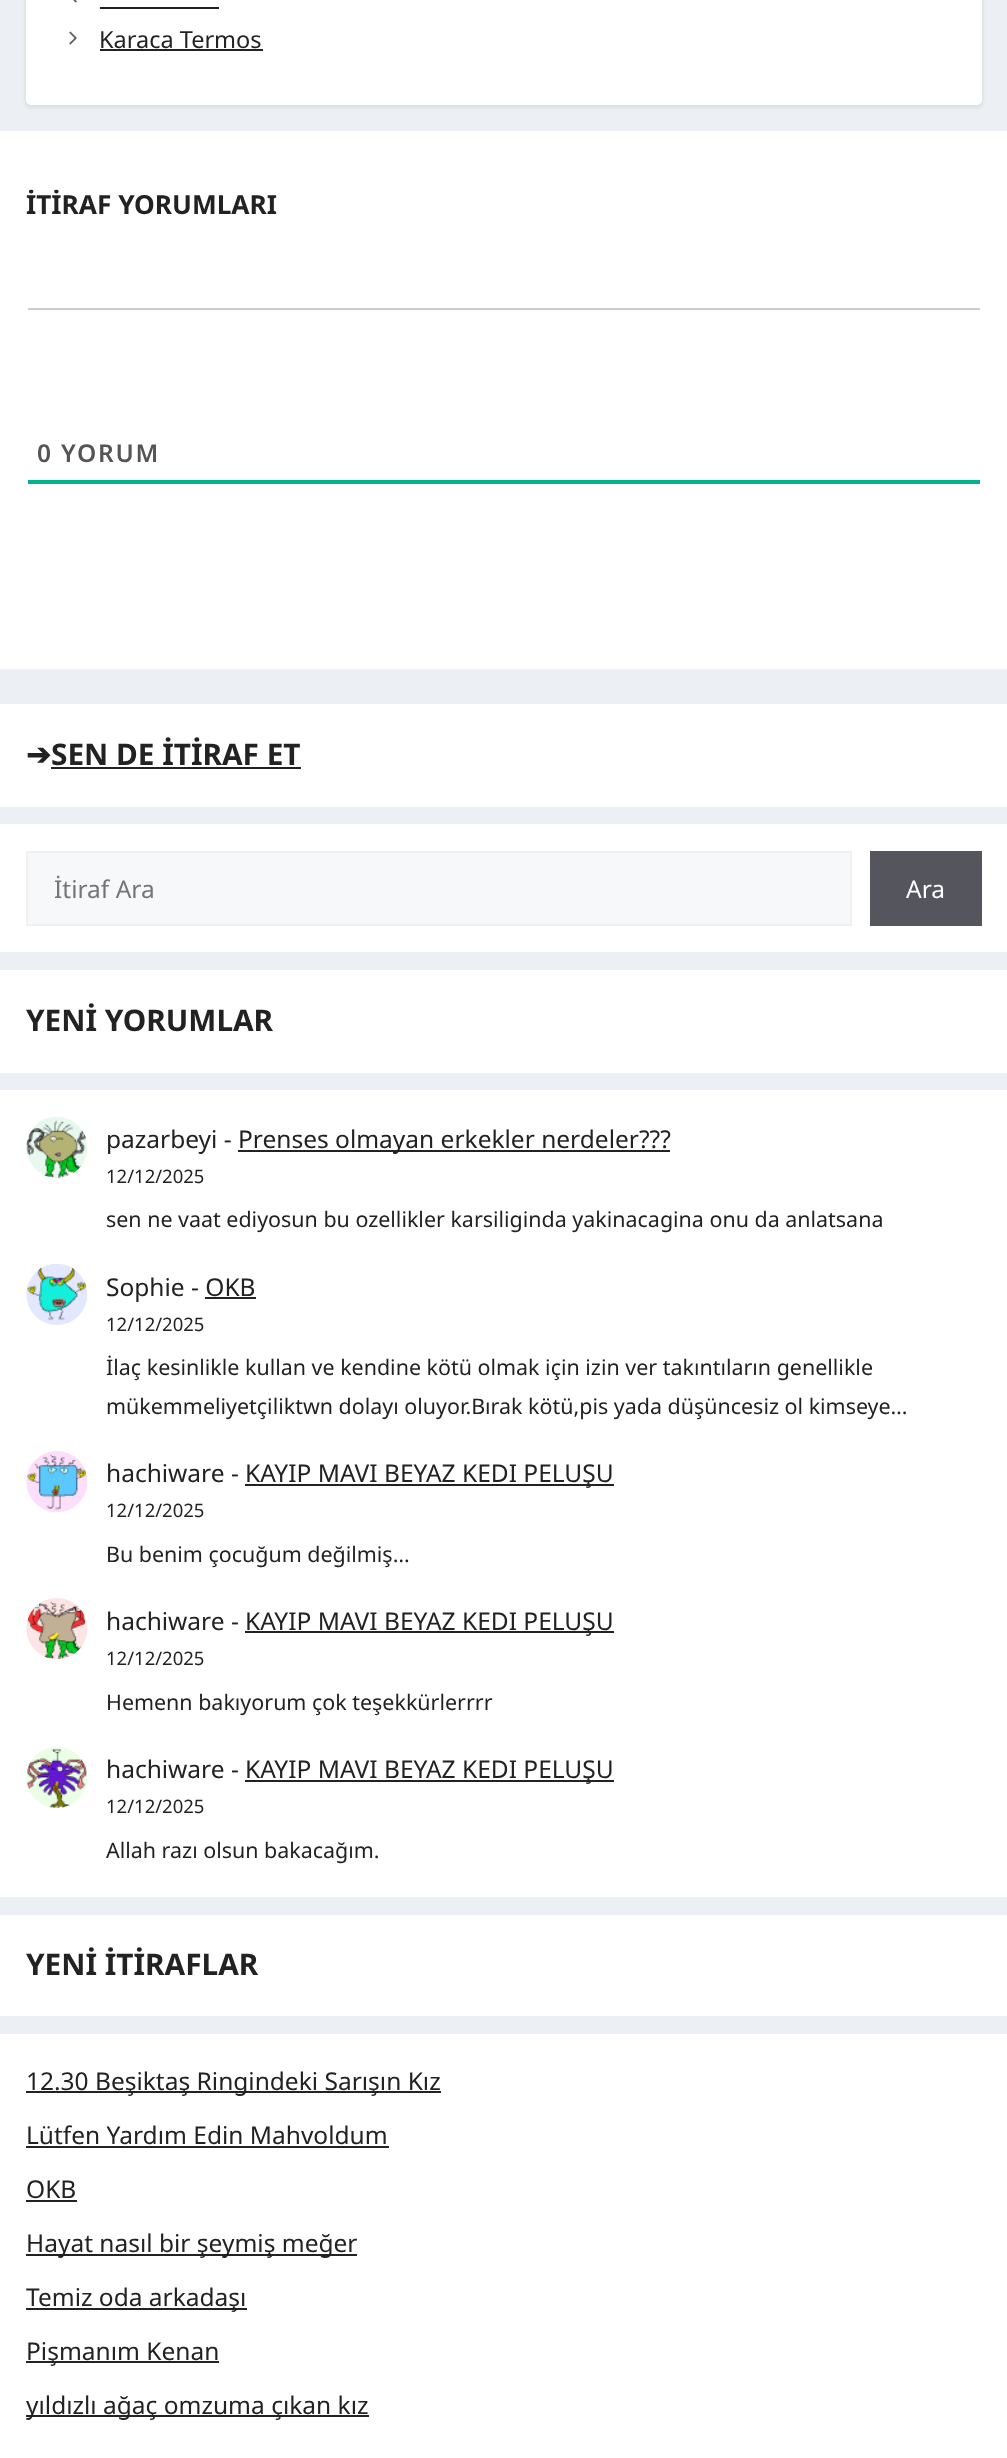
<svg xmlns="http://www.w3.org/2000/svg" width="1007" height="2458">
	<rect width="100%" height="100%" fill="#ECF0F5" />
	<rect x="26" y="-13" width="956" height="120" rx="5" fill="#000000" fill-opacity="0.1" filter="blur(2.5px)" />
	<rect x="26" y="-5" width="956" height="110" rx="5" fill="#FFFFFF" />
	<image x="73" y="0" width="4" height="3" href="assets/img1.png" />
	<rect x="100" y="7" width="119" height="2" fill="#222222" />
	<image x="69" y="31" width="8" height="14" href="assets/img2.png" />
	<text x="99" y="48" font-family="Noto Sans" font-size="23.5" fill="#222222">Karaca Termos</text>
	<rect x="100" y="49" width="163" height="2" fill="#222222" />
	<rect x="0" y="131" width="1007" height="538" fill="#FFFFFF" />
	<text x="26" y="214" font-family="Noto Sans" font-size="26.25" font-weight="700" fill="#222222">İTİRAF YORUMLARI</text>
	<rect x="28" y="308" width="952" height="2" fill="#CCCCCC" />
	<rect x="28" y="480" width="952" height="4" fill="#00B38F" />
	<text x="37" y="462" font-family="Noto Sans" font-size="24.5" font-weight="600" letter-spacing="1.75" fill="#555555">0 YORUM</text>
	<rect x="0" y="704" width="1007" height="103" fill="#FFFFFF" />
	<text x="26" y="765" font-family="DejaVu Sans" font-size="29.75" font-weight="700" fill="#222222">➔</text>
	<text x="51" y="765" font-family="Noto Sans" font-size="29.75" font-weight="700" fill="#222222">SEN DE İTİRAF ET</text>
	<rect x="51" y="767" width="250" height="2" fill="#222222" />
	<rect x="0" y="824" width="1007" height="128" fill="#FFFFFF" />
	<rect x="27" y="852" width="824" height="73" fill="#F7F8F9" stroke="#F0F0F0" stroke-width="2" />
	<text x="54" y="898" font-family="Noto Sans" font-size="24.5" fill="#757575">İtiraf Ara</text>
	<rect x="870" y="851" width="112" height="75" fill="#55555E" />
	<text x="906" y="898" font-family="Noto Sans" font-size="24.5" fill="#FFFFFF">Ara</text>
	<rect x="0" y="970" width="1007" height="103" fill="#FFFFFF" />
	<text x="26" y="1031" font-family="Noto Sans" font-size="29.75" font-weight="700" fill="#222222">YENİ YORUMLAR</text>
	<rect x="0" y="1090" width="1007" height="807" fill="#FFFFFF" />
	<image x="26" y="1117" width="62" height="61" href="assets/img3.png" />
	<text x="106" y="1148" font-family="Noto Sans" font-size="24.5" fill="#222222">pazarbeyi -</text>
	<rect x="238" y="1150" width="432" height="2" fill="#222222" />
	<text x="238" y="1148" font-family="Noto Sans" font-size="24.5" fill="#222222">Prenses olmayan erkekler nerdeler???</text>
	<text x="106" y="1183" font-family="Noto Sans" font-size="18.5" fill="#222222">12/12/2025</text>
	<text x="106" y="1227" font-family="Noto Sans" font-size="21.45" fill="#222222">sen ne vaat ediyosun bu ozellikler karsiliginda yakinacagina onu da anlatsana</text>
	<image x="26" y="1264" width="62" height="61" href="assets/img4.png" />
	<text x="106" y="1296" font-family="Noto Sans" font-size="24.5" fill="#222222">Sophie - OKB</text>
	<rect x="205" y="1297" width="51" height="2" fill="#222222" />
	<text x="106" y="1331" font-family="Noto Sans" font-size="18.5" fill="#222222">12/12/2025</text>
	<g font-family="Noto Sans" font-size="21.45" fill="#222222">
		<text x="106" y="1375">İlaç kesinlikle kullan ve kendine kötü olmak için izin ver takıntıların genellikle</text>
		<text x="106" y="1414">mükemmeliyetçiliktwn dolayı oluyor.Bırak kötü,pis yada düşüncesiz ol kimseye…</text>
	</g>
	<image x="26" y="1451" width="62" height="61" href="assets/img5.png" />
	<text x="106" y="1482" font-family="Noto Sans" font-size="24.5" fill="#222222">hachiware -</text>
	<rect x="245" y="1484" width="369" height="2" fill="#222222" />
	<text x="245" y="1482" font-family="Noto Sans" font-size="24.5" fill="#222222">KAYIP MAVI BEYAZ KEDI PELUŞU</text>
	<text x="106" y="1517" font-family="Noto Sans" font-size="18.5" fill="#222222">12/12/2025</text>
	<text x="106" y="1562" font-family="Noto Sans" font-size="21.45" fill="#222222">Bu benim çocuğum değilmiş…</text>
	<image x="26" y="1598" width="62" height="61" href="assets/img6.png" />
	<text x="106" y="1630" font-family="Noto Sans" font-size="24.5" fill="#222222">hachiware -</text>
	<rect x="245" y="1631" width="369" height="2" fill="#222222" />
	<text x="245" y="1630" font-family="Noto Sans" font-size="24.5" fill="#222222">KAYIP MAVI BEYAZ KEDI PELUŞU</text>
	<text x="106" y="1665" font-family="Noto Sans" font-size="18.5" fill="#222222">12/12/2025</text>
	<text x="106" y="1710" font-family="Noto Sans" font-size="21.45" fill="#222222">Hemenn bakıyorum çok teşekkürlerrrr</text>
	<image x="26" y="1747" width="62" height="61" href="assets/img7.png" />
	<text x="106" y="1778" font-family="Noto Sans" font-size="24.5" fill="#222222">hachiware -</text>
	<rect x="245" y="1780" width="369" height="2" fill="#222222" />
	<text x="245" y="1778" font-family="Noto Sans" font-size="24.5" fill="#222222">KAYIP MAVI BEYAZ KEDI PELUŞU</text>
	<text x="106" y="1813" font-family="Noto Sans" font-size="18.5" fill="#222222">12/12/2025</text>
	<text x="106" y="1858" font-family="Noto Sans" font-size="21.45" fill="#222222">Allah razı olsun bakacağım.</text>
	<rect x="0" y="1915" width="1007" height="101" fill="#FFFFFF" />
	<text x="26" y="1975" font-family="Noto Sans" font-size="29.75" font-weight="700" fill="#222222">YENİ İTİRAFLAR</text>
	<rect x="0" y="2034" width="1007" height="424" fill="#FFFFFF" />
	<rect x="26" y="2091" width="415" height="2" fill="#222222" />
	<g font-family="Noto Sans" font-size="24.5" fill="#222222">
		<text x="26" y="2090">12.30 Beşiktaş Ringindeki Sarışın Kız</text>
		<text x="26" y="2144">Lütfen Yardım Edin Mahvoldum</text>
	</g>
	<rect x="26" y="2146" width="363" height="2" fill="#222222" />
	<text x="26" y="2198" font-family="Noto Sans" font-size="24.5" fill="#222222">OKB</text>
	<rect x="26" y="2200" width="51" height="2" fill="#222222" />
	<rect x="26" y="2254" width="331" height="2" fill="#222222" />
	<text x="26" y="2252" font-family="Noto Sans" font-size="24.5" fill="#222222">Hayat nasıl bir şeymiş meğer</text>
	<rect x="26" y="2308" width="221" height="2" fill="#222222" />
	<text x="26" y="2306" font-family="Noto Sans" font-size="24.5" fill="#222222">Temiz oda arkadaşı</text>
	<rect x="26" y="2361" width="193" height="2" fill="#222222" />
	<text x="26" y="2360" font-family="Noto Sans" font-size="24.5" fill="#222222">Pişmanım Kenan</text>
	<rect x="26" y="2415" width="343" height="2" fill="#222222" />
	<text x="26" y="2414" font-family="Noto Sans" font-size="24.5" fill="#222222">yıldızlı ağaç omzuma çıkan kız</text>
</svg>
